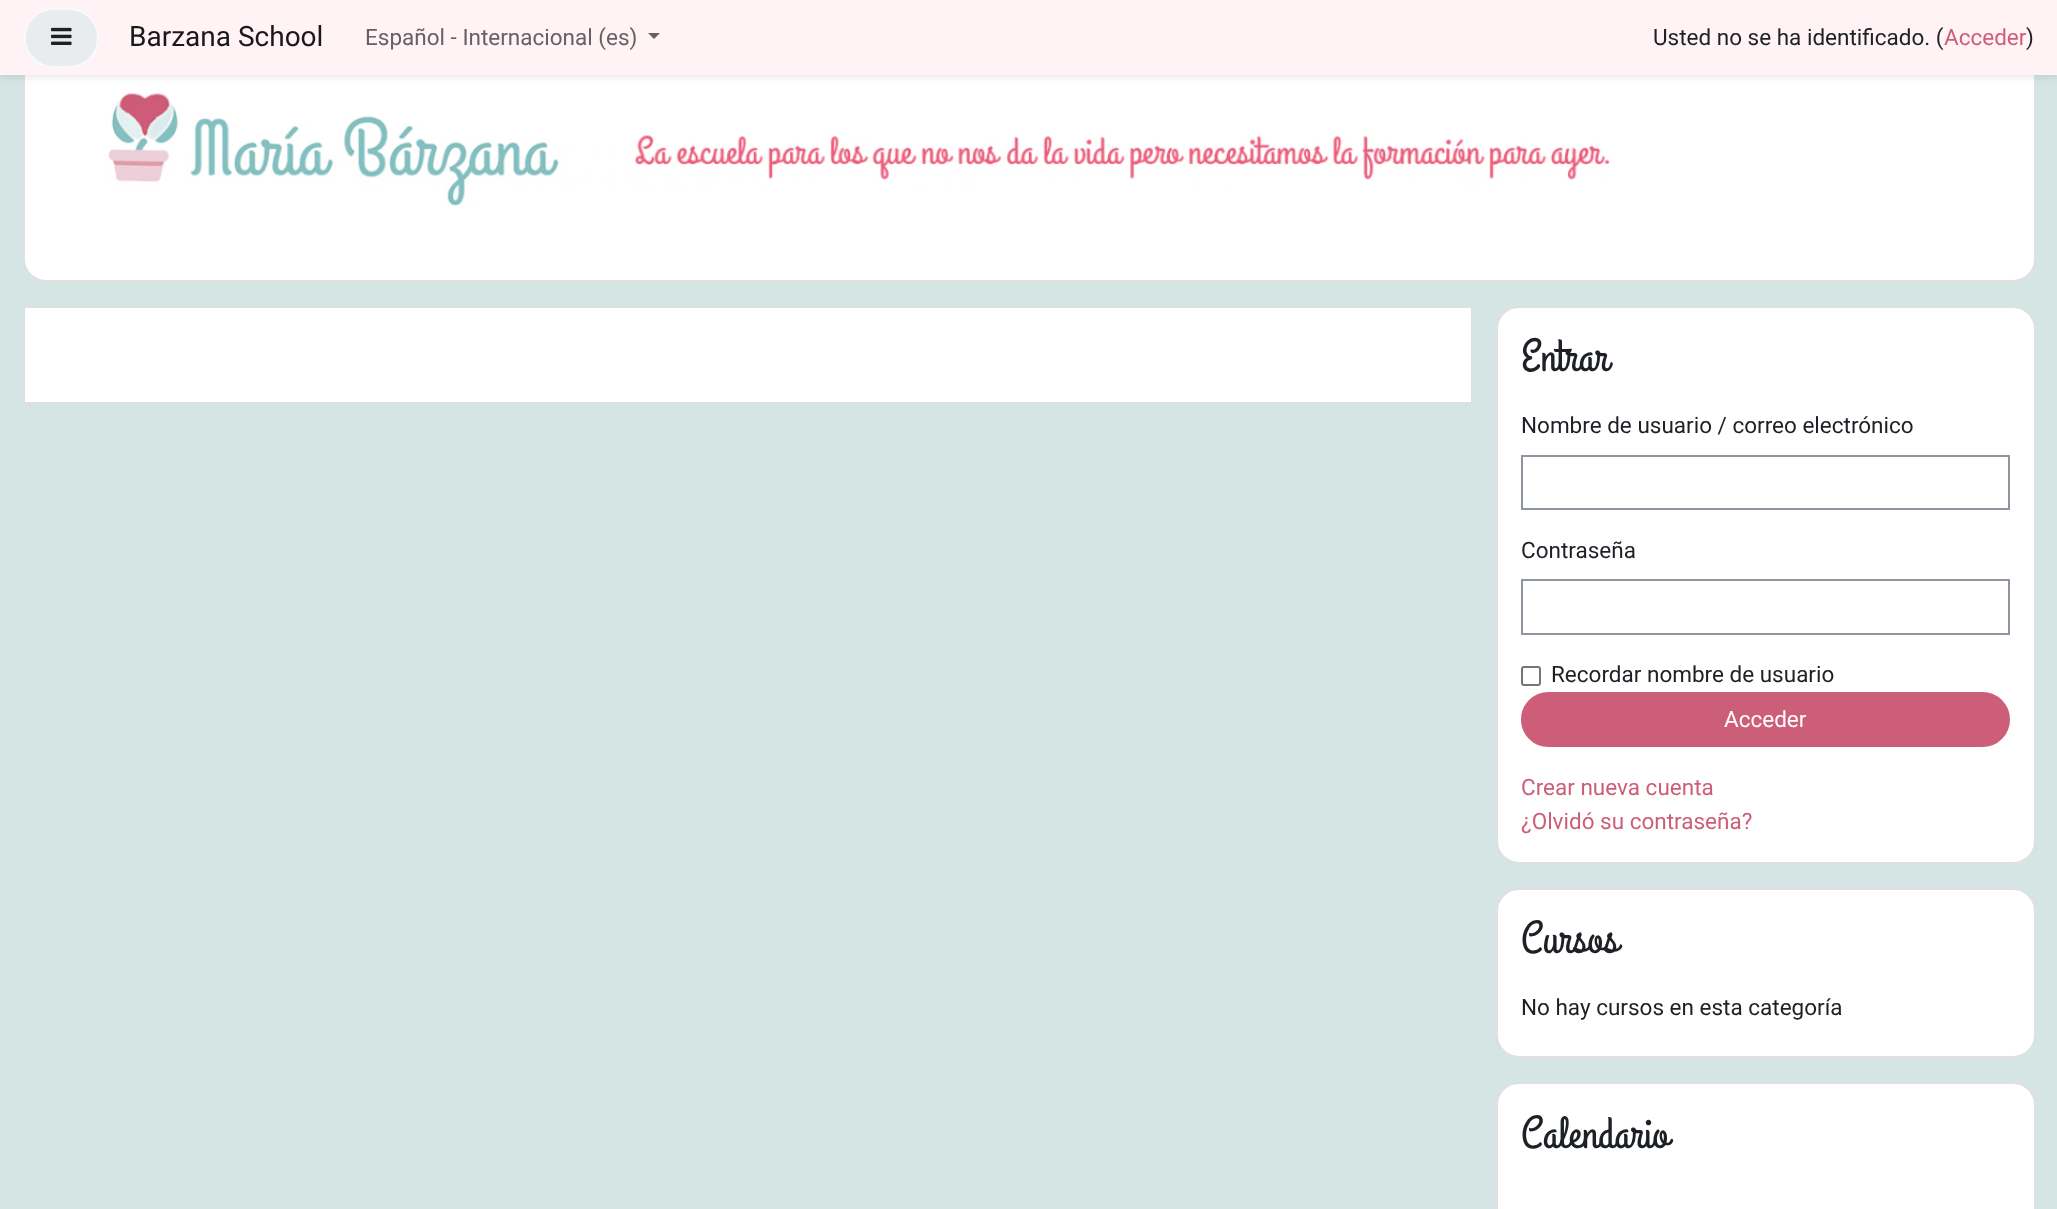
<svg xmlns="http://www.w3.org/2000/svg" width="2057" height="1209">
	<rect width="100%" height="100%" fill="#D4E5E3" />
	<rect x="23" y="11" width="2013" height="271" rx="23" fill="#FFFFFF" />
	<rect x="24" y="12" width="2011" height="269" rx="22" fill="none" stroke="#000000" stroke-opacity="0.12" stroke-width="2" />
	<rect x="0" y="3" width="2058" height="75" fill="#000000" fill-opacity="0.08" filter="blur(3px)" />
	<rect x="0" y="0" width="2057" height="75" fill="#FFF3F6" />
	<rect x="25" y="9" width="73" height="58" rx="29" fill="#E9ECEF" stroke="#F8F9FA" stroke-width="2" />
	<image x="51" y="27" width="21" height="18" href="assets/img1.png" />
	<text x="129" y="46" font-family="Roboto" font-size="28" fill="#1A1819">Barzana School</text>
	<text x="365" y="45" font-family="Roboto" font-size="22.5" fill="#666162">Español - Internacional (es)</text>
	<path d="M648 33H660L654 39Z" fill="#666162" />
	<text x="1653" y="45" font-family="Roboto" font-size="22.5" fill="#1D2125">Usted no se ha identificado. (</text>
	<text x="1944" y="45" font-family="Roboto" font-size="22.5" fill="#CD5E7A">Acceder</text>
	<text x="2026" y="45" font-family="Roboto" font-size="22.5" fill="#1D2125">)</text>
	<image x="108" y="93" width="1502" height="113" href="assets/img2.png" />
	<rect x="24" y="307" width="1448" height="96" fill="#FFFFFF" stroke="#DFDFDF" stroke-width="2" />
	<rect x="1496" y="306" width="540" height="558" rx="23" fill="#FFFFFF" />
	<rect x="1497" y="307" width="538" height="556" rx="22" fill="none" stroke="#000000" stroke-opacity="0.12" stroke-width="2" />
	<text x="1521" y="370" font-family="Grand Hotel" font-size="45" fill="#1D2125">Entrar</text>
	<text x="1521" y="433" font-family="Roboto" font-size="22.5" fill="#1D2125">Nombre de usuario / correo electrónico</text>
	<rect x="1522" y="456" width="487" height="53" fill="none" stroke="#8F959E" stroke-width="2" />
	<text x="1521" y="558" font-family="Roboto" font-size="22.5" fill="#1D2125">Contraseña</text>
	<rect x="1522" y="580" width="487" height="54" fill="none" stroke="#8F959E" stroke-width="2" />
	<rect x="1522" y="667" width="18" height="18" rx="2" fill="none" stroke="#767676" stroke-width="2" />
	<text x="1551" y="682" font-family="Roboto" font-size="22.5" fill="#1D2125">Recordar nombre de usuario</text>
	<rect x="1522" y="693" width="487" height="53" rx="26.5" fill="#CD5E7A" stroke="#CD5E7A" stroke-width="2" />
	<text x="1724" y="727" font-family="Roboto" font-size="22.5" fill="#FFFFFF">Acceder</text>
	<g font-family="Roboto" font-size="22.5" fill="#CD5E7A">
		<text x="1521" y="795">Crear nueva cuenta</text>
		<text x="1521" y="829">¿Olvidó su contraseña?</text>
	</g>
	<rect x="1496" y="888" width="540" height="170" rx="23" fill="#FFFFFF" />
	<rect x="1497" y="889" width="538" height="168" rx="22" fill="none" stroke="#000000" stroke-opacity="0.12" stroke-width="2" />
	<text x="1521" y="952" font-family="Grand Hotel" font-size="45" fill="#1D2125">Cursos</text>
	<text x="1521" y="1015" font-family="Roboto" font-size="22.5" fill="#1D2125">No hay cursos en esta categoría</text>
	<rect x="1496" y="1082" width="540" height="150" rx="23" fill="#FFFFFF" />
	<rect x="1497" y="1083" width="538" height="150" rx="22" fill="none" stroke="#000000" stroke-opacity="0.12" stroke-width="2" />
	<text x="1521" y="1147" font-family="Grand Hotel" font-size="45" fill="#1D2125">Calendario</text>
</svg>
